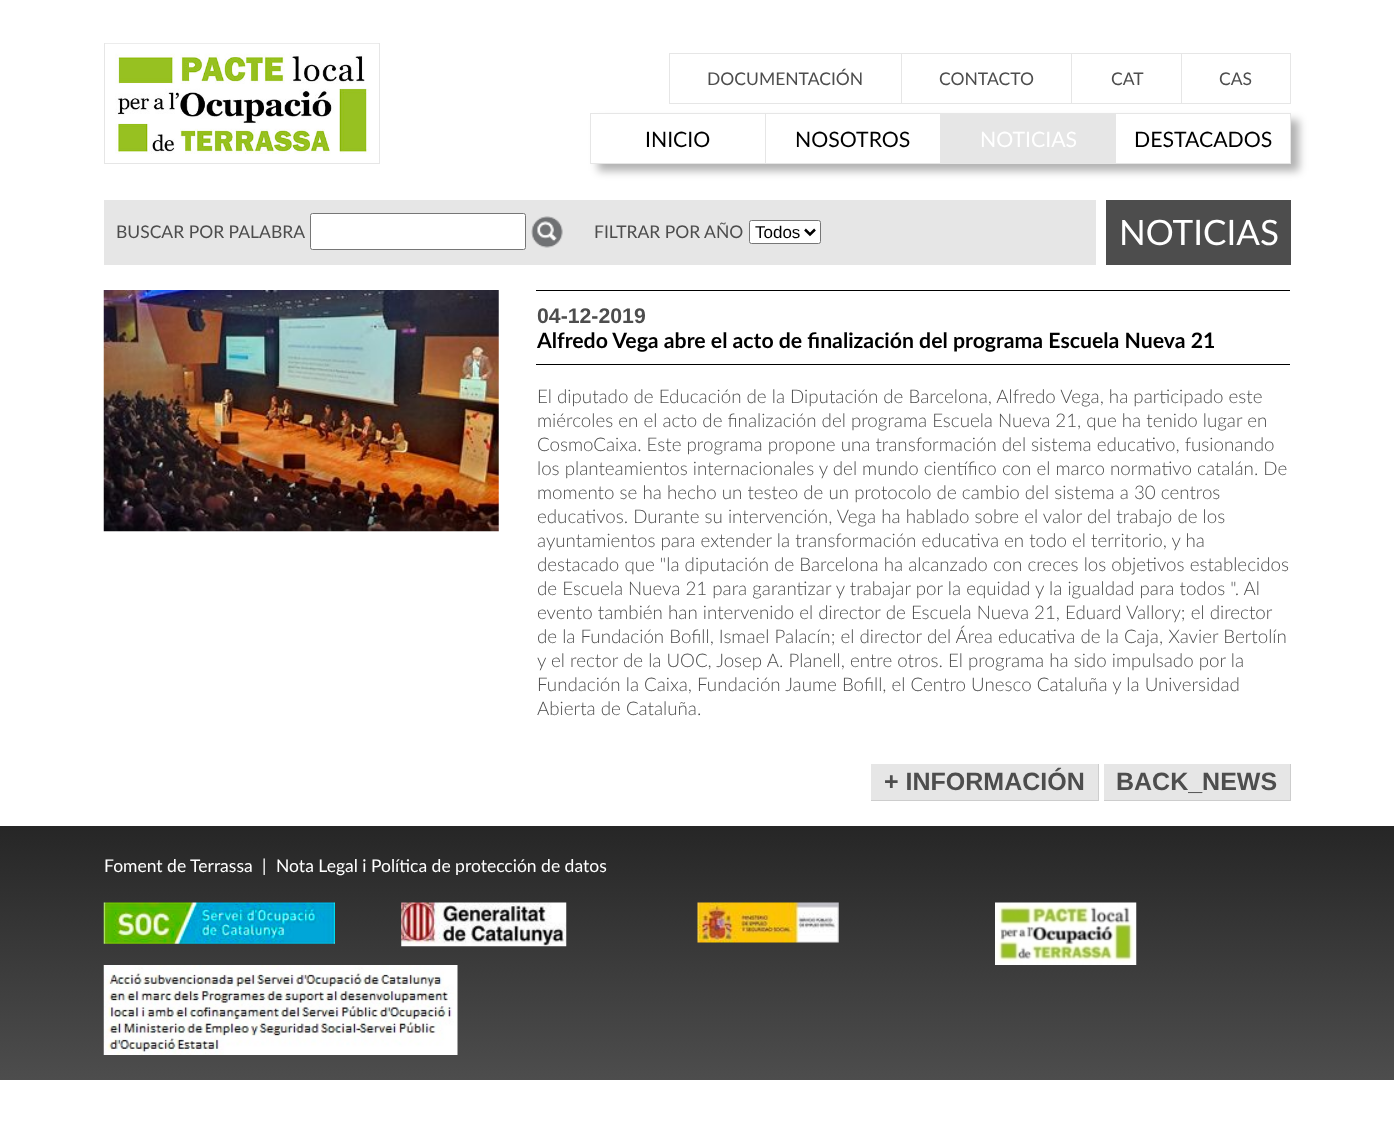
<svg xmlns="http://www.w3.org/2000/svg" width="1394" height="1124">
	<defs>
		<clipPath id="clip1"><path d="M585 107H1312V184H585ZM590 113H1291V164H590Z" clip-rule="evenodd" /></clipPath>
		<linearGradient id="g1" gradientUnits="userSpaceOnUse" x1="698" y1="826" x2="698" y2="1080"><stop offset="0" stop-color="#262626" /><stop offset="1" stop-color="#4D4D4D" /></linearGradient>
	</defs>
	<rect width="100%" height="100%" fill="#FFFFFF" />
	<rect x="104.5" y="43.5" width="275" height="120" fill="none" stroke="#E6E6E6" />
	<image x="105" y="43" width="274" height="111" href="assets/img1.png" />
	<rect x="669" y="53" width="622" height="1" fill="#E6E6E6" />
	<rect x="669" y="103" width="622" height="1" fill="#E6E6E6" />
	<rect x="669" y="53" width="1" height="51" fill="#E6E6E6" />
	<rect x="901" y="54" width="1" height="49" fill="#E6E6E6" />
	<text x="707" y="85" font-family="Lato" font-size="17.5" fill="#4D4D4D">DOCUMENTACIÓN</text>
	<rect x="1071" y="54" width="1" height="49" fill="#E6E6E6" />
	<text x="939" y="85" font-family="Lato" font-size="17.5" fill="#4D4D4D">CONTACTO</text>
	<rect x="1181" y="54" width="1" height="49" fill="#E6E6E6" />
	<text x="1111" y="85" font-family="Lato" font-size="17.5" fill="#4D4D4D">CAT</text>
	<rect x="1290" y="54" width="1" height="49" fill="#E6E6E6" />
	<text x="1219" y="85" font-family="Lato" font-size="17.5" fill="#4D4D4D">CAS</text>
	<g clip-path="url(#clip1)">
		<rect x="598" y="120" width="701" height="51" fill="#000000" fill-opacity="0.3" filter="blur(4px)" />
	</g>
	<rect x="590" y="113" width="701" height="1" fill="#E6E6E6" />
	<rect x="590" y="163" width="701" height="1" fill="#E6E6E6" />
	<rect x="590" y="113" width="1" height="51" fill="#E6E6E6" />
	<rect x="765" y="114" width="1" height="49" fill="#E6E6E6" />
	<text x="645" y="147" font-family="Lato" font-size="21.25" fill="#000000">INICIO</text>
	<rect x="940" y="114" width="176" height="49" fill="#E6E6E6" />
	<text x="795" y="147" font-family="Lato" font-size="21.25" fill="#000000">NOSOTROS</text>
	<text x="980" y="147" font-family="Lato" font-size="21.25" fill="#FFFFFF">NOTICIAS</text>
	<rect x="1290" y="114" width="1" height="49" fill="#E6E6E6" />
	<text x="1134" y="147" font-family="Lato" font-size="21.25" fill="#000000">DESTACADOS</text>
	<rect x="104" y="200" width="992" height="65" fill="#E6E6E6" />
	<text x="116" y="238" font-family="Lato" font-size="17.5" fill="#4D4D4D">BUSCAR POR PALABRA</text>
	<rect x="310.5" y="213.5" width="215" height="36" rx="2" fill="#FFFFFF" stroke="#767676" />
	<image x="531" y="216" width="32" height="32" href="assets/img2.png" />
	<text x="594" y="238" font-family="Lato" font-size="17.5" fill="#4D4D4D">FILTRAR POR AÑO</text>
	<rect x="749.5" y="220.5" width="71" height="23" rx="2" fill="#FFFFFF" stroke="#767676" />
	<path d="M805 229.5L810 234.5L815 229.5" fill="none" stroke="#000000" stroke-width="2.5" />
	<text x="755" y="238" font-family="Liberation Sans" font-size="17" fill="#000000">Todos</text>
	<rect x="1106" y="200" width="185" height="65" fill="#4D4D4D" />
	<text x="1119" y="245" font-family="Lato" font-size="35" fill="#FFFFFF">NOTICIAS</text>
	<image x="103" y="290" width="396" height="242" href="assets/img3.png" />
	<rect x="536" y="290" width="754" height="1" fill="#000000" />
	<rect x="536" y="364" width="754" height="1" fill="#000000" />
	<text x="537" y="323" font-family="Liberation Sans" font-size="21.25" font-weight="700" fill="#4D4D4D">04-12-2019</text>
	<text x="537" y="348" font-family="Lato" font-size="21.25" font-weight="700" fill="#000000">Alfredo Vega abre el acto de finalización del programa Escuela Nueva 21</text>
	<g font-family="Lato" font-size="18.75" font-weight="300" fill="#4D4D4D">
		<text x="537" y="403">El diputado de Educación de la Diputación de Barcelona, Alfredo Vega, ha participado este</text>
		<text x="537" y="427">miércoles en el acto de finalización del programa Escuela Nueva 21, que ha tenido lugar en</text>
		<text x="537" y="451">CosmoCaixa. Este programa propone una transformación del sistema educativo, fusionando</text>
		<text x="537" y="475">los planteamientos internacionales y del mundo científico con el marco normativo catalán. De</text>
		<text x="537" y="499">momento se ha hecho un testeo de un protocolo de cambio del sistema a 30 centros</text>
		<text x="537" y="523">educativos. Durante su intervención, Vega ha hablado sobre el valor del trabajo de los</text>
		<text x="537" y="547">ayuntamientos para extender la transformación educativa en todo el territorio, y ha</text>
		<text x="537" y="571">destacado que "la diputación de Barcelona ha alcanzado con creces los objetivos establecidos</text>
		<text x="537" y="595">de Escuela Nueva 21 para garantizar y trabajar por la equidad y la igualdad para todos ". Al</text>
		<text x="537" y="619">evento también han intervenido el director de Escuela Nueva 21, Eduard Vallory; el director</text>
		<text x="537" y="643">de la Fundación Bofill, Ismael Palacín; el director del Área educativa de la Caja, Xavier Bertolín</text>
		<text x="537" y="667">y el rector de la UOC, Josep A. Planell, entre otros. El programa ha sido impulsado por la</text>
		<text x="537" y="691">Fundación la Caixa, Fundación Jaume Bofill, el Centro Unesco Cataluña y la Universidad</text>
		<text x="537" y="715">Abierta de Cataluña.</text>
	</g>
	<rect x="871" y="764" width="227" height="36" fill="#E6E6E6" />
	<rect x="1098" y="764" width="1" height="37" fill="#CDCDCD" />
	<rect x="871" y="800" width="228" height="1" fill="#CDCDCD" />
	<text x="884" y="790" font-family="Liberation Sans" font-size="25" font-weight="700" fill="#4D4D4D">+ INFORMACIÓN</text>
	<rect x="1104" y="764" width="186" height="36" fill="#E6E6E6" />
	<rect x="1290" y="764" width="1" height="37" fill="#CDCDCD" />
	<rect x="1104" y="800" width="187" height="1" fill="#CDCDCD" />
	<text x="1116" y="790" font-family="Liberation Sans" font-size="25" font-weight="700" fill="#4D4D4D">BACK_NEWS</text>
	<rect x="0" y="826" width="1394" height="254" fill="url(#g1)" />
	<g font-family="Lato" font-size="17.5" fill="#FFFFFF">
		<text x="104" y="872">Foment de Terrassa</text>
		<text x="262" y="872">|</text>
		<text x="276" y="872">Nota Legal i Política de protección de datos</text>
	</g>
	<image x="103" y="902" width="232" height="42" href="assets/img4.png" />
	<image x="401" y="902" width="166" height="45" href="assets/img5.png" />
	<image x="697" y="902" width="142" height="41" href="assets/img6.png" />
	<image x="995" y="902" width="142" height="63" href="assets/img7.png" />
	<image x="103" y="965" width="355" height="90" href="assets/img8.png" />
</svg>
